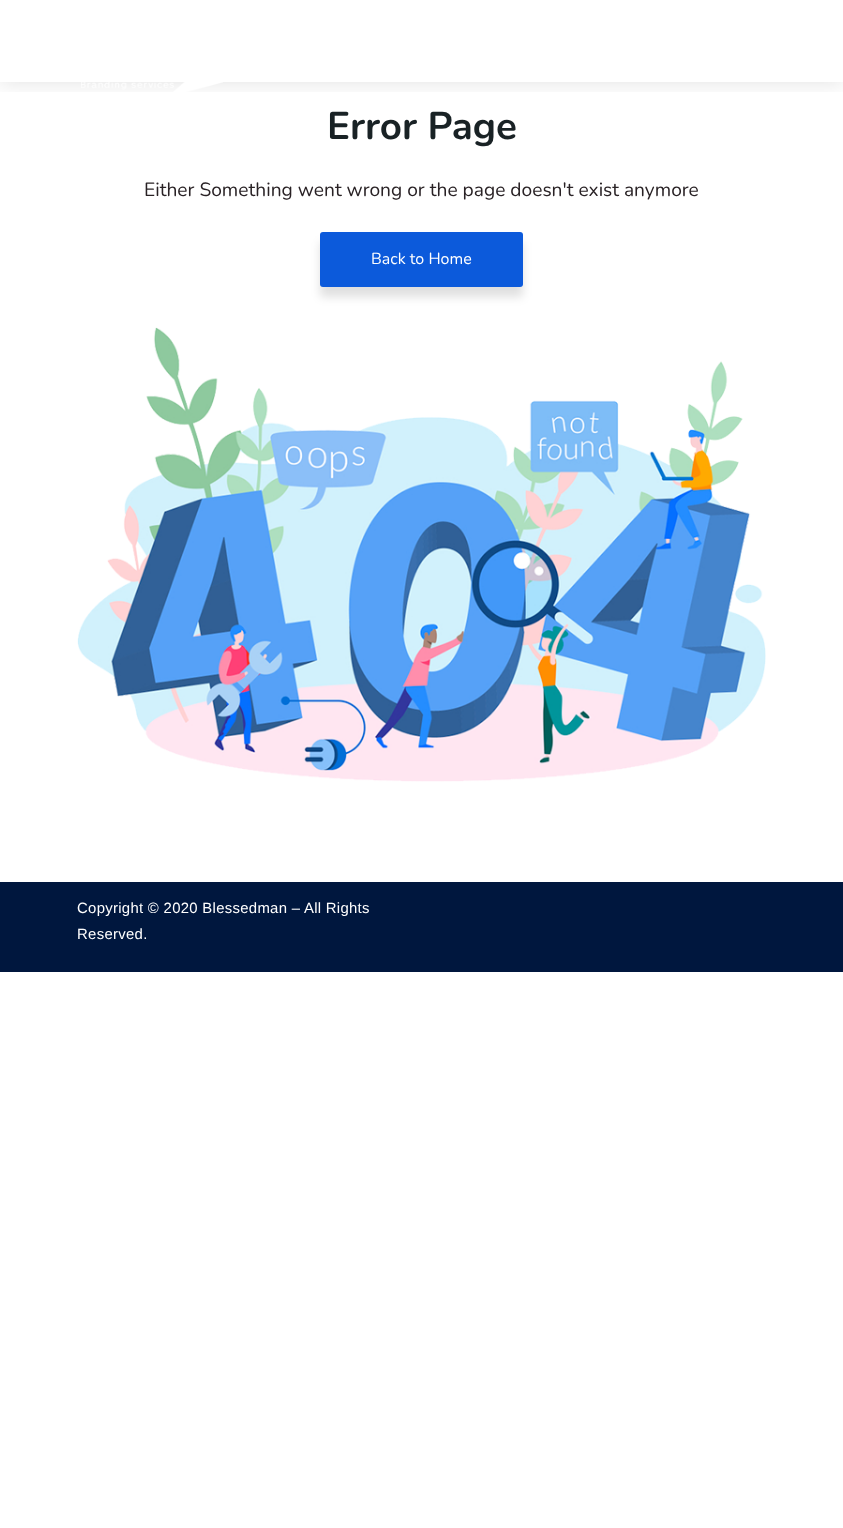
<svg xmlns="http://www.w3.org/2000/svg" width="843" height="1528">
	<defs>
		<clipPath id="clip1"><rect x="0" y="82" width="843" height="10" /></clipPath>
	</defs>
	<rect width="100%" height="100%" fill="#FFFFFF" />
	<g clip-path="url(#clip1)">
		<rect x="0" y="2" width="843" height="82" fill="#000000" fill-opacity="0.1" filter="blur(10px)" />
	</g>
	<image x="81" y="82" width="142" height="12" href="assets/img1.png" />
	<text x="327" y="139" font-family="Nunito" font-size="38.5" font-weight="700" fill="#192225">Error Page</text>
	<text x="144" y="196" font-family="Nunito" font-size="19.2" fill="#292225">Either Something went wrong or the page doesn't exist anymore</text>
	<rect x="320" y="242" width="203" height="55" rx="3" fill="#000000" fill-opacity="0.12" filter="blur(5px)" />
	<rect x="320" y="232" width="203" height="55" rx="3" fill="#0C5ADB" />
	<text x="371" y="264" font-family="Nunito" font-size="16" fill="#FFFFFF">Back to Home</text>
	<image x="77" y="327" width="689" height="455" href="assets/img2.png" />
	<rect x="0" y="882" width="843" height="90" fill="#00173E" />
	<g font-family="Liberation Sans" font-size="14.9" letter-spacing="0.3" fill="#FFFFFF">
		<text x="77" y="913">Copyright © 2020 Blessedman – All Rights</text>
		<text x="77" y="939">Reserved.</text>
	</g>
</svg>
